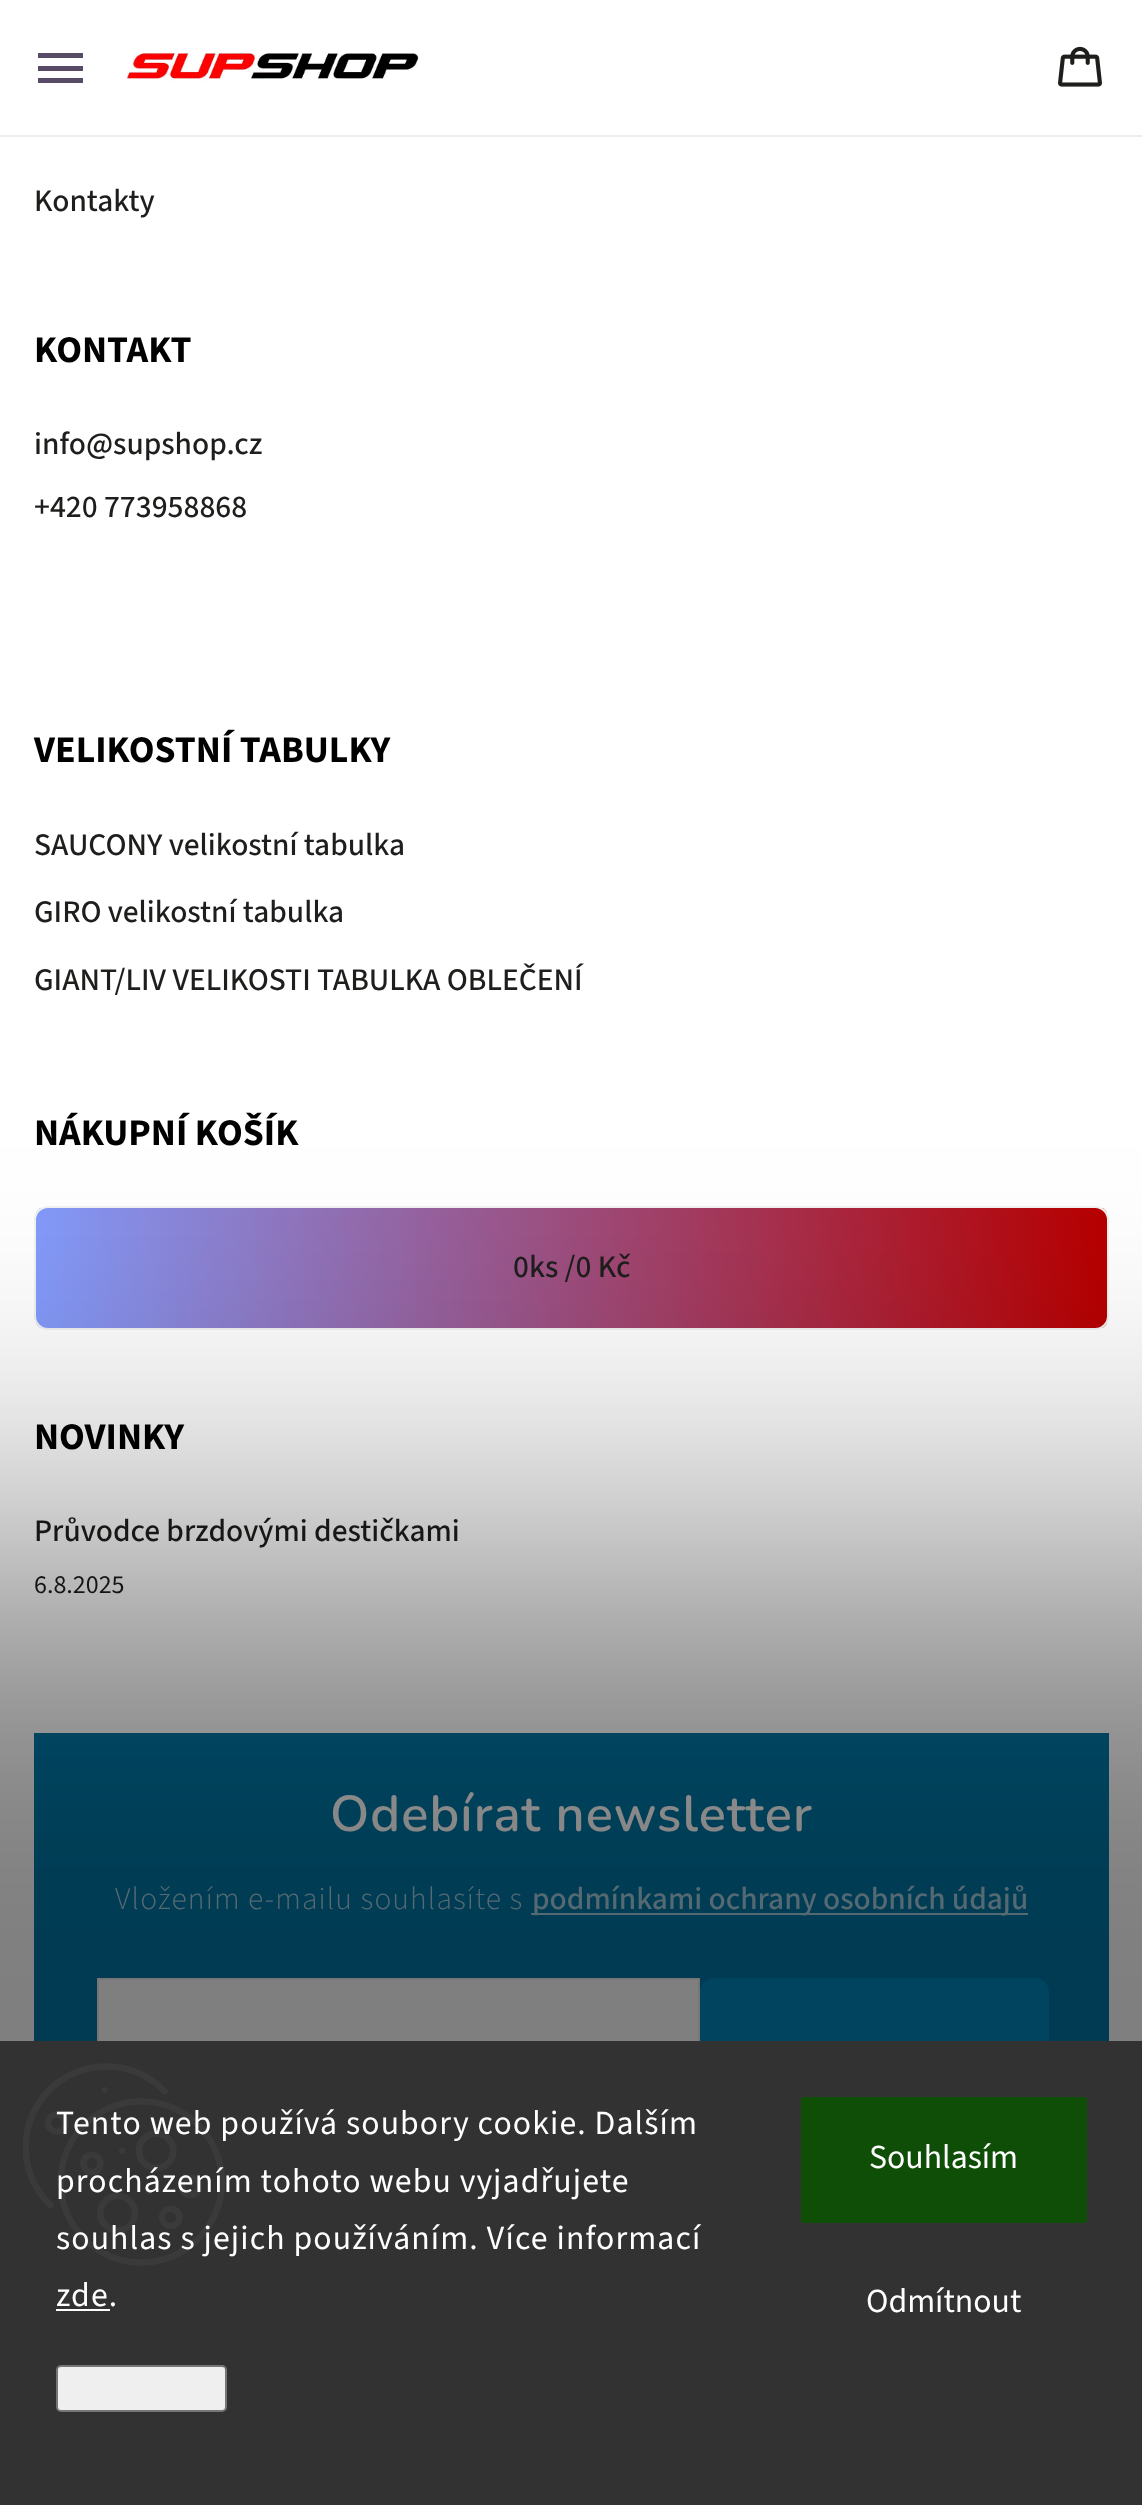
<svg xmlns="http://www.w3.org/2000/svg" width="1142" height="2505">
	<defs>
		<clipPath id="clip1"><rect x="34" y="1206" width="1075" height="124" rx="14" /></clipPath>
		<linearGradient id="g1" gradientUnits="userSpaceOnUse" x1="35" y1="1277" x2="1108" y2="1259"><stop offset="0" stop-color="#839BFB" /><stop offset="1" stop-color="#B80000" /></linearGradient>
	</defs>
	<rect width="100%" height="100%" fill="#FFFFFF" />
	<rect x="0" y="135" width="1142" height="2" fill="#EDEDED" />
	<path d="M38 83H83V78H38ZM38 71H83V66H38ZM38 53V58H83V53Z" fill="#574A65" />
	<image x="126" y="52" width="293" height="30" href="assets/img1.png" />
	<image x="1058" y="46" width="44" height="41" href="assets/img2.png" />
	<text x="34" y="211" font-family="'Source Sans 3'" font-size="31.5" font-weight="500" fill="#1E1E1C">Kontakty</text>
	<text x="34" y="362" font-family="'Source Sans 3'" font-size="37.75" font-weight="700" fill="#000000">KONTAKT</text>
	<g font-family="'Source Sans 3'" font-size="31.5" font-weight="500" fill="#1E1E1C">
		<text x="34" y="454">info@supshop.cz</text>
		<text x="34" y="517">+420 773958868</text>
	</g>
	<text x="34" y="762" font-family="'Source Sans 3'" font-size="37.75" font-weight="700" fill="#000000">VELIKOSTNÍ TABULKY</text>
	<g font-family="'Source Sans 3'" font-size="31.5" font-weight="500" fill="#1E1E1C">
		<text x="34" y="855">SAUCONY velikostní tabulka</text>
		<text x="34" y="922">GIRO velikostní tabulka</text>
		<text x="34" y="990">GIANT/LIV VELIKOSTI TABULKA OBLEČENÍ</text>
	</g>
	<text x="34" y="1145" font-family="'Source Sans 3'" font-size="37.75" font-weight="700" fill="#000000">NÁKUPNÍ KOŠÍK</text>
	<g clip-path="url(#clip1)">
		<rect x="36" y="1208" width="1071" height="120" fill="url(#g1)" />
	</g>
	<rect x="35" y="1207" width="1073" height="122" rx="13" fill="none" stroke="#F2F2F2" stroke-width="2" />
	<text x="513" y="1277" font-family="'Source Sans 3'" font-size="31.5" font-weight="500" fill="#1E1E1C">0ks /0 Kč</text>
	<text x="34" y="1449" font-family="'Source Sans 3'" font-size="37.75" font-weight="700" fill="#000000">NOVINKY</text>
	<text x="34" y="1541" font-family="'Source Sans 3'" font-size="31.5" font-weight="500" fill="#1E1E1C">Průvodce brzdovými destičkami</text>
	<text x="34" y="1593" font-family="'Source Sans 3'" font-size="26" fill="#1E1E1C">6.8.2025</text>
	<rect x="34" y="1733" width="1075" height="308" fill="#0077A6" />
	<text x="330" y="1831" font-family="Nunito" font-size="50.5" font-weight="600" letter-spacing="1.1" fill="#FFFFFF">Odebírat newsletter</text>
	<text x="115" y="1909" font-family="'Source Sans 3'" font-size="31.5" font-weight="300" letter-spacing="1.1" fill="#A6CFE0">Vložením e-mailu souhlasíte s</text>
	<rect x="531" y="1913" width="497" height="2" fill="#A6CFE0" />
	<text x="532" y="1909" font-family="'Source Sans 3'" font-size="31.5" font-weight="500" fill="#A6CFE0">podmínkami ochrany osobních údajů</text>
	<rect x="99" y="1980" width="599" height="61" fill="#FFFFFF" />
	<rect x="98" y="1979" width="601" height="124" fill="none" stroke="#EDEDED" stroke-width="2" />
	<rect x="700" y="1978" width="349" height="126" rx="14" fill="#0088BF" />
	<rect x="-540" y="1559" width="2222" height="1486" fill="#000000" fill-opacity="0.5" filter="blur(180px)" />
	<rect x="0" y="2041" width="1142" height="464" fill="#323232" />
	<image x="23" y="2063" width="202" height="203" href="assets/img3.png" />
	<g font-family="'Source Sans 3'" font-size="33.75" letter-spacing="1.1" fill="#FFFFFF">
		<text x="56" y="2134">Tento web používá soubory cookie. Dalším</text>
		<text x="56" y="2192">procházením tohoto webu vyjadřujete</text>
		<text x="56" y="2249">souhlas s jejich používáním. Více informací</text>
		<text x="56" y="2306">zde.</text>
	</g>
	<rect x="56" y="2309" width="54" height="2" fill="#FFFFFF" />
	<rect x="57" y="2366" width="169" height="45" rx="4" fill="#EFEFEF" stroke="#767676" stroke-width="2" />
	<rect x="801" y="2097" width="286" height="126" fill="#0F4E06" />
	<g font-family="'Source Sans 3'" font-size="33.75" fill="#FFFFFF">
		<text x="869" y="2168">Souhlasím</text>
		<text x="866" y="2312">Odmítnout</text>
	</g>
</svg>
